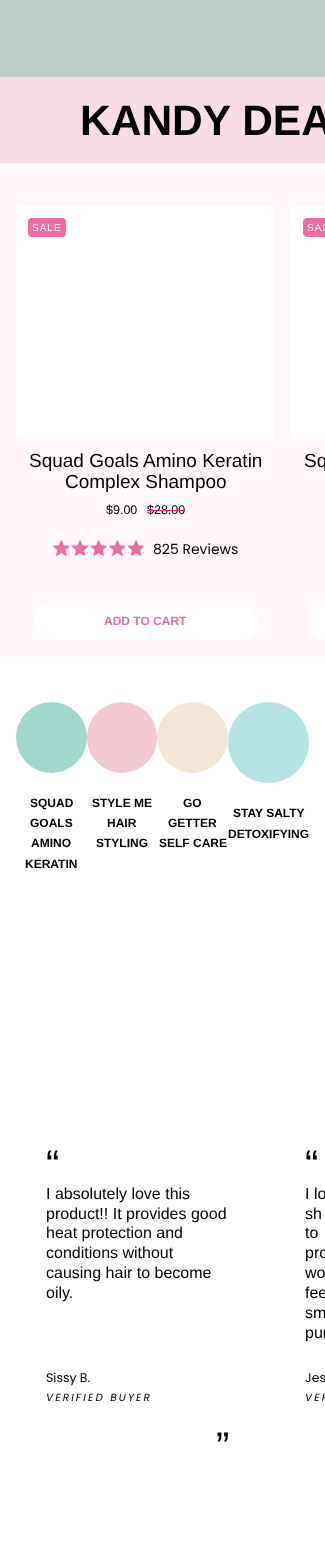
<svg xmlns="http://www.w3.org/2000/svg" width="325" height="1549">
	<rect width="100%" height="100%" fill="#FFFFFF" />
	<rect x="0" y="0" width="325" height="77" fill="#BCCDC7" />
	<rect x="0" y="77" width="325" height="86" fill="#F9DEE5" />
	<text x="80" y="135" font-family="Liberation Sans" font-size="42.5" font-weight="700" fill="#000000">KANDY DEA</text>
	<rect x="0" y="163" width="325" height="494" fill="#FFF7F9" />
	<rect x="16" y="206" width="259" height="233" rx="4" fill="#FFFFFF" />
	<rect x="28" y="218" width="38" height="19" rx="4" fill="#EE6CA1" />
	<text x="32" y="231" font-family="Liberation Sans" font-size="10" letter-spacing="1" fill="#FFFFFF">SALE</text>
	<g font-family="Liberation Sans" font-size="19" fill="#000000">
		<text x="29" y="467">Squad Goals Amino Keratin</text>
		<text x="65" y="488">Complex Shampoo</text>
	</g>
	<g font-family="Liberation Sans" font-size="12.5" fill="#000000">
		<text x="106" y="514">$9.00</text>
		<text x="147" y="514">$28.00</text>
	</g>
	<rect x="147" y="510" width="38" height="1" fill="#F21C72" />
	<image x="53" y="540" width="92" height="16" href="assets/img1.png" />
	<image x="53" y="540" width="90" height="16" href="assets/img2.png" />
	<text x="153" y="554" font-family="Poppins" font-size="14" fill="#000000">825 Reviews</text>
	<rect x="34" y="603" width="224" height="37" rx="18.5" fill="#FFFFFF" />
	<text x="104" y="625" font-family="Liberation Sans" font-size="12" font-weight="700" fill="#EE6CA1">ADD TO CART</text>
	<path d="M295 206H325V439H295C293 439 291 437 291 435V210C291 208 293 206 295 206Z" fill="#FFFFFF" />
	<path d="M307 218H325V237H307C305 237 303 235 303 233V222C303 220 305 218 307 218Z" fill="#EE6CA1" />
	<text x="307" y="231" font-family="Liberation Sans" font-size="10" letter-spacing="1" fill="#FFFFFF">SAL</text>
	<text x="304" y="467" font-family="Liberation Sans" font-size="19" fill="#000000">Sq</text>
	<path d="M327.5 603H325V640H327.5C317.5 640 309 631.5 309 621.5C309 611.5 317.5 603 327.5 603Z" fill="#FFFFFF" />
	<image x="16" y="702" width="71" height="71" href="assets/img3.png" />
	<g font-family="Liberation Sans" font-size="12" font-weight="700" fill="#000000">
		<text x="30" y="807">SQUAD</text>
		<text x="30" y="827">GOALS</text>
		<text x="31" y="847">AMINO</text>
		<text x="25" y="868">KERATIN</text>
	</g>
	<image x="87" y="702" width="70" height="71" href="assets/img4.png" />
	<g font-family="Liberation Sans" font-size="12" font-weight="700" fill="#000000">
		<text x="92" y="807">STYLE ME</text>
		<text x="107" y="827">HAIR</text>
		<text x="96" y="847">STYLING</text>
	</g>
	<image x="157" y="702" width="71" height="71" href="assets/img5.png" />
	<g font-family="Liberation Sans" font-size="12" font-weight="700" fill="#000000">
		<text x="183" y="807">GO</text>
		<text x="168" y="827">GETTER</text>
		<text x="159" y="847">SELF CARE</text>
	</g>
	<image x="228" y="702" width="81" height="81" href="assets/img6.png" />
	<g font-family="Liberation Sans" font-size="12" font-weight="700" fill="#000000">
		<text x="233" y="817">STAY SALTY</text>
		<text x="228" y="838">DETOXIFYING</text>
	</g>
	<text x="46" y="1178" font-family="Liberation Sans" font-size="40" fill="#000000">“</text>
	<g font-family="Liberation Sans" font-size="16" fill="#000000">
		<text x="46" y="1199">I absolutely love this</text>
		<text x="46" y="1219">product!! It provides good</text>
		<text x="46" y="1238">heat protection and</text>
		<text x="46" y="1258">conditions without</text>
		<text x="46" y="1278">causing hair to become</text>
		<text x="46" y="1298">oily.</text>
	</g>
	<text x="216" y="1460" font-family="Liberation Sans" font-size="40" fill="#000000">”</text>
	<text x="46" y="1382" font-family="Poppins" font-size="12.5" fill="#000000">Sissy B.</text>
	<text x="46" y="1401" font-family="Poppins" font-size="10.5" font-style="italic" letter-spacing="2.1" fill="#000000">VERIFIED BUYER</text>
	<text x="305" y="1178" font-family="Liberation Sans" font-size="40" fill="#000000">“</text>
	<g font-family="Liberation Sans" font-size="16" fill="#000000">
		<text x="305" y="1199">I lo</text>
		<text x="305" y="1219">sh</text>
		<text x="305" y="1238">to</text>
		<text x="305" y="1258">pro</text>
		<text x="305" y="1278">wo</text>
		<text x="305" y="1298">fee</text>
		<text x="305" y="1318">sm</text>
		<text x="305" y="1338">pur</text>
	</g>
	<text x="305" y="1382" font-family="Poppins" font-size="12.5" fill="#000000">Jes</text>
	<text x="305" y="1401" font-family="Poppins" font-size="10.5" font-style="italic" letter-spacing="2.1" fill="#000000">VER</text>
</svg>
